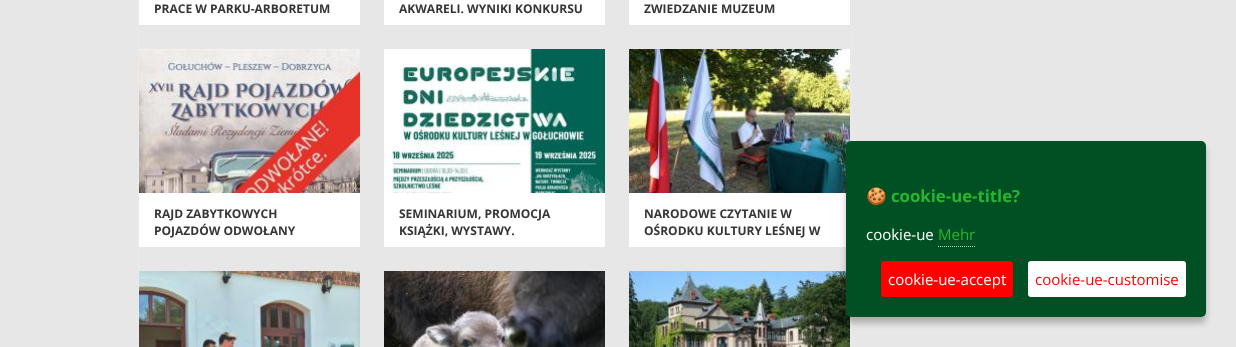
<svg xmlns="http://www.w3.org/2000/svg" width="1236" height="347">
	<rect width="100%" height="100%" fill="#E7E7E7" />
	<rect x="851" y="0" width="1" height="347" fill="#EAEAEA" />
	<rect x="138" y="0" width="1" height="347" fill="#EAEAEA" />
	<rect x="139" y="0" width="221" height="25" fill="#FFFFFF" />
	<text x="154" y="13" font-family="Open Sans" font-size="12" font-weight="700" fill="#363636">PRACE W PARKU-ARBORETUM</text>
	<rect x="384" y="0" width="221" height="25" fill="#FFFFFF" />
	<text x="399" y="13" font-family="Open Sans" font-size="12" font-weight="700" fill="#363636">AKWARELI. WYNIKI KONKURSU</text>
	<rect x="629" y="0" width="221" height="25" fill="#FFFFFF" />
	<text x="644" y="13" font-family="Open Sans" font-size="12" font-weight="700" fill="#363636">ZWIEDZANIE MUZEUM</text>
	<image x="139" y="49" width="221" height="144" href="assets/img1.png" />
	<rect x="139" y="193" width="221" height="54" fill="#FFFFFF" />
	<g font-family="Open Sans" font-size="12" font-weight="700" fill="#363636">
		<text x="154" y="218">RAJD ZABYTKOWYCH</text>
		<text x="154" y="235">POJAZDÓW ODWOŁANY</text>
	</g>
	<image x="384" y="49" width="221" height="144" href="assets/img2.png" />
	<rect x="384" y="193" width="221" height="54" fill="#FFFFFF" />
	<g font-family="Open Sans" font-size="12" font-weight="700" fill="#363636">
		<text x="399" y="218">SEMINARIUM, PROMOCJA</text>
		<text x="399" y="235">KSIĄŻKI, WYSTAWY.</text>
	</g>
	<image x="629" y="49" width="221" height="144" href="assets/img3.png" />
	<rect x="629" y="193" width="217" height="54" fill="#FFFFFF" />
	<g font-family="Open Sans" font-size="12" font-weight="700" fill="#363636">
		<text x="644" y="218">NARODOWE CZYTANIE W</text>
		<text x="644" y="235">OŚRODKU KULTURY LEŚNEJ W</text>
	</g>
	<image x="139" y="271" width="221" height="76" href="assets/img4.png" />
	<image x="384" y="271" width="221" height="76" href="assets/img5.png" />
	<image x="629" y="271" width="221" height="76" href="assets/img6.png" />
	<rect x="846" y="147" width="360" height="176" rx="5" fill="#000000" fill-opacity="0.25" filter="blur(3px)" />
	<rect x="846" y="141" width="360" height="176" rx="5" fill="#005023" />
	<text x="866" y="202" font-family="Noto Color Emoji" font-size="16.75" font-weight="700" fill="#28B532">🍪</text>
	<text x="891" y="202" font-family="Open Sans" font-size="16.75" font-weight="700" fill="#28B532">cookie-ue-title?</text>
	<text x="866" y="240" font-family="Open Sans" font-size="15" fill="#FFFFFF">cookie-ue</text>
	<text x="938" y="240" font-family="Open Sans" font-size="15" fill="#28B532">Mehr</text>
	<path d="M938 246.5H975" fill="none" stroke="#BFD3C8" stroke-dasharray="1 1" />
	<rect x="881" y="261" width="132" height="36" rx="3" fill="#FF0000" />
	<text x="888" y="285" font-family="Open Sans" font-size="15" fill="#FFFFFF">cookie-ue-accept</text>
	<rect x="1028" y="261" width="158" height="36" rx="3" fill="#FFFFFF" />
	<text x="1035" y="285" font-family="Open Sans" font-size="15" fill="#FF0000">cookie-ue-customise</text>
</svg>
